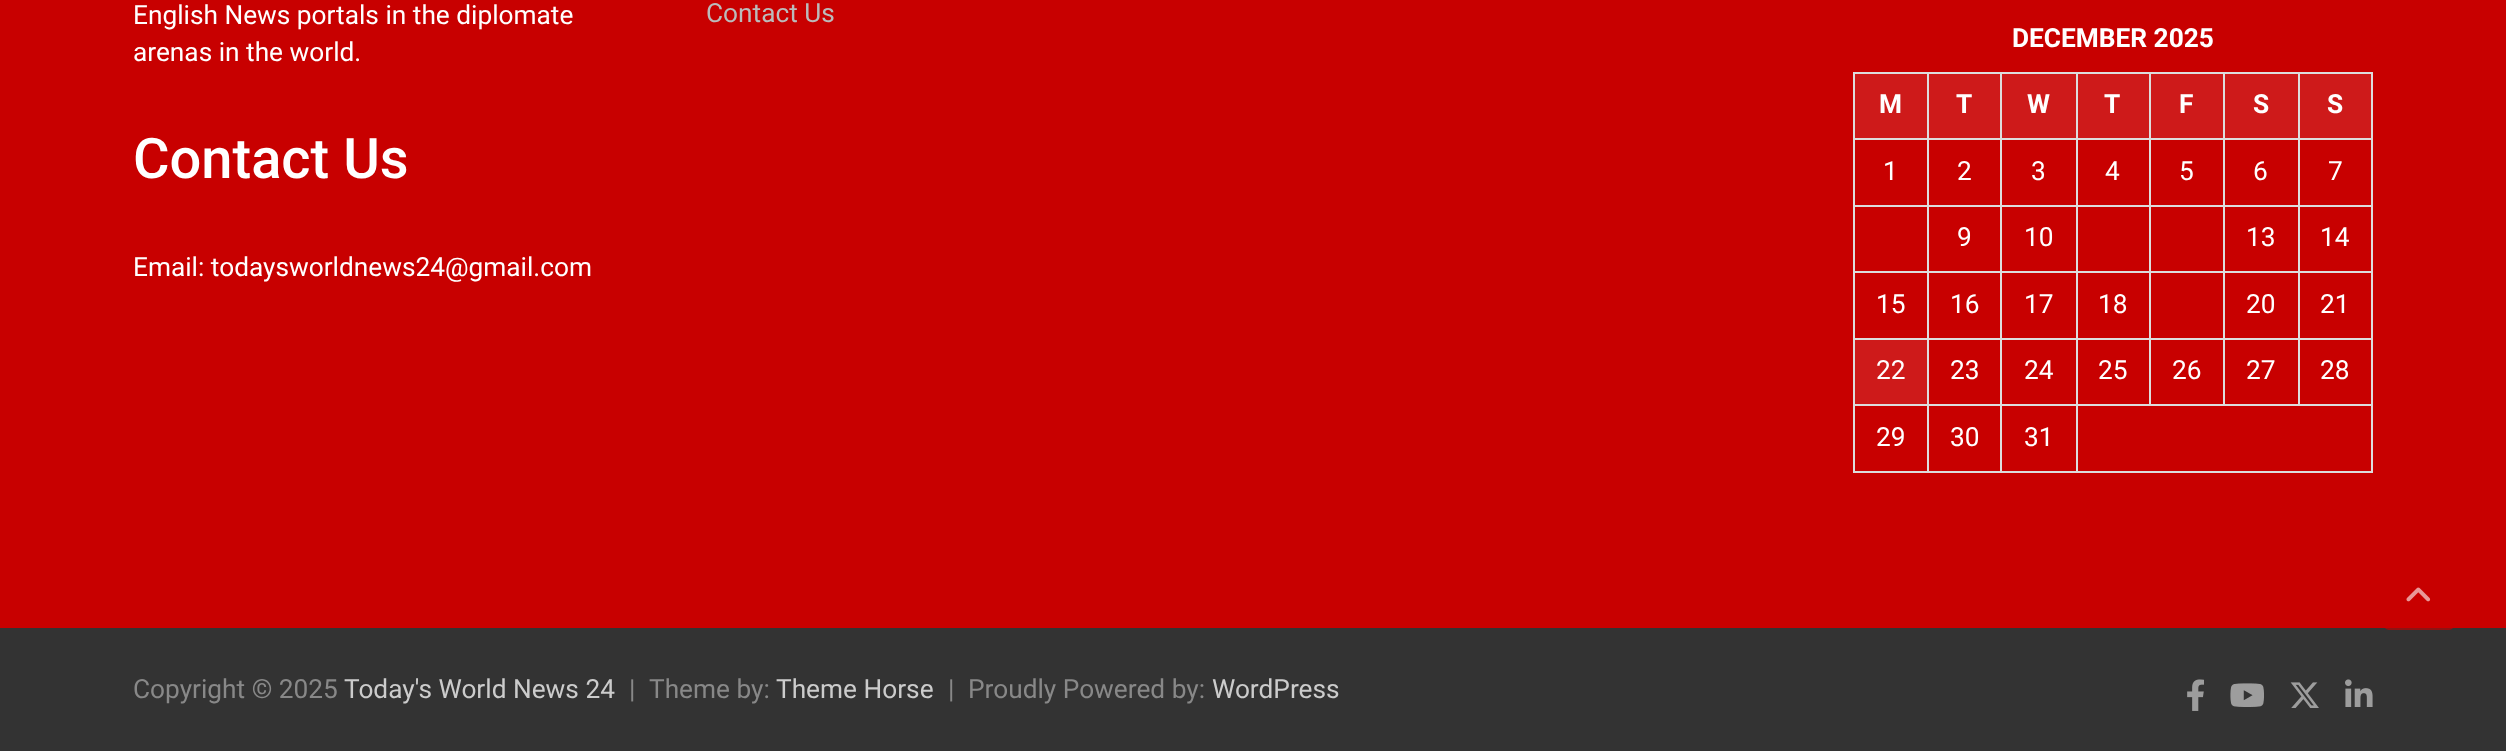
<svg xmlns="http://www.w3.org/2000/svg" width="2506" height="751">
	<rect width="100%" height="100%" fill="#C80000" />
	<g font-family="Roboto" font-size="26.25" fill="#FFFFFF">
		<text x="133" y="24">English News portals in the diplomate</text>
		<text x="133" y="61">arenas in the world.</text>
	</g>
	<text x="133" y="178" font-family="Roboto" font-size="56" font-weight="500" fill="#FFFFFF">Contact Us</text>
	<text x="133" y="276" font-family="Roboto" font-size="26.25" fill="#FFFFFF">Email: todaysworldnews24@gmail.com</text>
	<text x="706" y="22" font-family="Roboto" font-size="26.25" fill="#BBBBBB">Contact Us</text>
	<text x="2012" y="47" font-family="Roboto" font-size="26.25" font-weight="700" fill="#FFFFFF">DECEMBER 2025</text>
	<rect x="1855" y="74" width="72" height="64" fill="#CE1A1A" />
	<rect x="2298" y="72" width="75" height="2" fill="#DDDDDD" />
	<rect x="2298" y="138" width="75" height="2" fill="#DDDDDD" />
	<rect x="2298" y="205" width="75" height="2" fill="#DDDDDD" />
	<rect x="2298" y="271" width="75" height="2" fill="#DDDDDD" />
	<rect x="2298" y="338" width="75" height="2" fill="#DDDDDD" />
	<rect x="2076" y="404" width="297" height="2" fill="#DDDDDD" />
	<rect x="2298" y="338" width="2" height="68" fill="#DDDDDD" />
	<rect x="2223" y="338" width="77" height="2" fill="#DDDDDD" />
	<rect x="2298" y="271" width="2" height="69" fill="#DDDDDD" />
	<rect x="2223" y="271" width="77" height="2" fill="#DDDDDD" />
	<rect x="2298" y="205" width="2" height="68" fill="#DDDDDD" />
	<rect x="2223" y="205" width="77" height="2" fill="#DDDDDD" />
	<rect x="2298" y="138" width="2" height="69" fill="#DDDDDD" />
	<rect x="2223" y="138" width="77" height="2" fill="#DDDDDD" />
	<rect x="2298" y="72" width="2" height="68" fill="#DDDDDD" />
	<rect x="2223" y="72" width="77" height="2" fill="#DDDDDD" />
	<rect x="2223" y="338" width="2" height="68" fill="#DDDDDD" />
	<rect x="2149" y="338" width="75" height="2" fill="#DDDDDD" />
	<rect x="2223" y="271" width="2" height="69" fill="#DDDDDD" />
	<rect x="2149" y="271" width="75" height="2" fill="#DDDDDD" />
	<rect x="2223" y="205" width="2" height="68" fill="#DDDDDD" />
	<rect x="2149" y="205" width="75" height="2" fill="#DDDDDD" />
	<rect x="2223" y="138" width="2" height="69" fill="#DDDDDD" />
	<rect x="2149" y="138" width="75" height="2" fill="#DDDDDD" />
	<rect x="2223" y="72" width="2" height="68" fill="#DDDDDD" />
	<rect x="2149" y="72" width="75" height="2" fill="#DDDDDD" />
	<rect x="2149" y="338" width="2" height="68" fill="#DDDDDD" />
	<rect x="2076" y="338" width="75" height="2" fill="#DDDDDD" />
	<rect x="2149" y="271" width="2" height="69" fill="#DDDDDD" />
	<rect x="2076" y="271" width="75" height="2" fill="#DDDDDD" />
	<rect x="2149" y="205" width="2" height="68" fill="#DDDDDD" />
	<rect x="2076" y="205" width="75" height="2" fill="#DDDDDD" />
	<rect x="2149" y="138" width="2" height="69" fill="#DDDDDD" />
	<rect x="2076" y="138" width="75" height="2" fill="#DDDDDD" />
	<rect x="2149" y="72" width="2" height="68" fill="#DDDDDD" />
	<rect x="2076" y="72" width="75" height="2" fill="#DDDDDD" />
	<rect x="2371" y="404" width="2" height="69" fill="#DDDDDD" />
	<rect x="2076" y="471" width="297" height="2" fill="#DDDDDD" />
	<rect x="2076" y="404" width="2" height="69" fill="#DDDDDD" />
	<rect x="2000" y="404" width="77" height="2" fill="#DDDDDD" />
	<rect x="2076" y="338" width="2" height="68" fill="#DDDDDD" />
	<rect x="2000" y="338" width="77" height="2" fill="#DDDDDD" />
	<rect x="2076" y="271" width="2" height="69" fill="#DDDDDD" />
	<rect x="2000" y="271" width="77" height="2" fill="#DDDDDD" />
	<rect x="2076" y="205" width="2" height="68" fill="#DDDDDD" />
	<rect x="2000" y="205" width="77" height="2" fill="#DDDDDD" />
	<rect x="2076" y="138" width="2" height="69" fill="#DDDDDD" />
	<rect x="2000" y="138" width="77" height="2" fill="#DDDDDD" />
	<rect x="2076" y="72" width="2" height="68" fill="#DDDDDD" />
	<rect x="2000" y="72" width="77" height="2" fill="#DDDDDD" />
	<rect x="2000" y="471" width="77" height="2" fill="#DDDDDD" />
	<rect x="2000" y="404" width="2" height="69" fill="#DDDDDD" />
	<rect x="1927" y="404" width="75" height="2" fill="#DDDDDD" />
	<rect x="2000" y="338" width="2" height="68" fill="#DDDDDD" />
	<rect x="1927" y="338" width="75" height="2" fill="#DDDDDD" />
	<rect x="2000" y="271" width="2" height="69" fill="#DDDDDD" />
	<rect x="1927" y="271" width="75" height="2" fill="#DDDDDD" />
	<rect x="2000" y="205" width="2" height="68" fill="#DDDDDD" />
	<rect x="1927" y="205" width="75" height="2" fill="#DDDDDD" />
	<rect x="2000" y="138" width="2" height="69" fill="#DDDDDD" />
	<rect x="1927" y="138" width="75" height="2" fill="#DDDDDD" />
	<rect x="2000" y="72" width="2" height="68" fill="#DDDDDD" />
	<rect x="1927" y="72" width="75" height="2" fill="#DDDDDD" />
	<rect x="1927" y="471" width="75" height="2" fill="#DDDDDD" />
	<rect x="1927" y="404" width="2" height="69" fill="#DDDDDD" />
	<rect x="1853" y="404" width="76" height="2" fill="#DDDDDD" />
	<rect x="1927" y="338" width="2" height="68" fill="#DDDDDD" />
	<rect x="1853" y="338" width="76" height="2" fill="#DDDDDD" />
	<rect x="1927" y="271" width="2" height="69" fill="#DDDDDD" />
	<rect x="1853" y="271" width="76" height="2" fill="#DDDDDD" />
	<rect x="1927" y="205" width="2" height="68" fill="#DDDDDD" />
	<rect x="1853" y="205" width="76" height="2" fill="#DDDDDD" />
	<rect x="1927" y="138" width="2" height="69" fill="#DDDDDD" />
	<rect x="1853" y="138" width="76" height="2" fill="#DDDDDD" />
	<rect x="1927" y="72" width="2" height="68" fill="#DDDDDD" />
	<rect x="1853" y="72" width="76" height="2" fill="#DDDDDD" />
	<rect x="1853" y="471" width="76" height="2" fill="#DDDDDD" />
	<rect x="1853" y="404" width="2" height="69" fill="#DDDDDD" />
	<rect x="1853" y="338" width="2" height="68" fill="#DDDDDD" />
	<rect x="1853" y="271" width="2" height="69" fill="#DDDDDD" />
	<rect x="1853" y="205" width="2" height="68" fill="#DDDDDD" />
	<rect x="1853" y="138" width="2" height="69" fill="#DDDDDD" />
	<rect x="1853" y="72" width="2" height="68" fill="#DDDDDD" />
	<text x="1879" y="113" font-family="Roboto" font-size="26.25" font-weight="700" fill="#FFFFFF">M</text>
	<rect x="1929" y="74" width="71" height="64" fill="#CE1A1A" />
	<text x="1956" y="113" font-family="Roboto" font-size="26.25" font-weight="700" fill="#FFFFFF">T</text>
	<rect x="2002" y="74" width="74" height="64" fill="#CE1A1A" />
	<text x="2027" y="113" font-family="Roboto" font-size="26.25" font-weight="700" fill="#FFFFFF">W</text>
	<rect x="2078" y="74" width="71" height="64" fill="#CE1A1A" />
	<text x="2104" y="113" font-family="Roboto" font-size="26.25" font-weight="700" fill="#FFFFFF">T</text>
	<rect x="2151" y="74" width="72" height="64" fill="#CE1A1A" />
	<text x="2179" y="113" font-family="Roboto" font-size="26.25" font-weight="700" fill="#FFFFFF">F</text>
	<rect x="2225" y="74" width="73" height="64" fill="#CE1A1A" />
	<text x="2253" y="113" font-family="Roboto" font-size="26.25" font-weight="700" fill="#FFFFFF">S</text>
	<rect x="2300" y="74" width="71" height="64" fill="#CE1A1A" />
	<rect x="2371" y="338" width="2" height="68" fill="#DDDDDD" />
	<rect x="2371" y="271" width="2" height="69" fill="#DDDDDD" />
	<rect x="2371" y="205" width="2" height="68" fill="#DDDDDD" />
	<rect x="2371" y="138" width="2" height="69" fill="#DDDDDD" />
	<rect x="2371" y="72" width="2" height="68" fill="#DDDDDD" />
	<text x="2327" y="113" font-family="Roboto" font-size="26.25" font-weight="700" fill="#FFFFFF">S</text>
	<g font-family="Roboto" font-size="26.25" fill="#FFFFFF">
		<text x="1883" y="180">1</text>
		<text x="1957" y="180">2</text>
		<text x="2031" y="180">3</text>
		<text x="2105" y="180">4</text>
		<text x="2179" y="180">5</text>
		<text x="2253" y="180">6</text>
		<text x="2328" y="180">7</text>
		<text x="1957" y="246">9</text>
		<text x="2024" y="246">10</text>
		<text x="2246" y="246">13</text>
		<text x="2320" y="246">14</text>
		<text x="1876" y="313">15</text>
		<text x="1950" y="313">16</text>
		<text x="2024" y="313">17</text>
		<text x="2098" y="313">18</text>
		<text x="2246" y="313">20</text>
		<text x="2320" y="313">21</text>
	</g>
	<rect x="1855" y="340" width="72" height="64" fill="#CE1A1A" />
	<g font-family="Roboto" font-size="26.25" fill="#FFFFFF">
		<text x="1876" y="379">22</text>
		<text x="1950" y="379">23</text>
		<text x="2024" y="379">24</text>
		<text x="2098" y="379">25</text>
		<text x="2172" y="379">26</text>
		<text x="2246" y="379">27</text>
		<text x="2320" y="379">28</text>
		<text x="1876" y="446">29</text>
		<text x="1950" y="446">30</text>
		<text x="2024" y="446">31</text>
	</g>
	<rect x="0" y="628" width="2506" height="123" fill="#333333" />
	<text x="133" y="698" font-family="Roboto" font-size="26.25" fill="#888888">Copyright © 2025</text>
	<text x="344" y="698" font-family="Roboto" font-size="26.25" fill="#CCCCCC">Today's World News 24</text>
	<g font-family="Roboto" font-size="26.25" fill="#888888">
		<text x="629" y="698">|</text>
		<text x="649" y="698">Theme by:</text>
	</g>
	<text x="776" y="698" font-family="Roboto" font-size="26.25" fill="#CCCCCC">Theme Horse</text>
	<g font-family="Roboto" font-size="26.25" fill="#888888">
		<text x="948" y="698">|</text>
		<text x="968" y="698">Proudly Powered by:</text>
	</g>
	<text x="1212" y="698" font-family="Roboto" font-size="26.25" fill="#CCCCCC">WordPress</text>
	<image x="2187" y="679" width="17" height="32" href="assets/img1.png" />
	<image x="2230" y="683" width="34" height="24" href="assets/img2.png" />
	<image x="2290" y="682" width="29" height="26" href="assets/img3.png" />
	<image x="2345" y="679" width="28" height="28" href="assets/img4.png" />
	<rect x="2384" y="560" width="70" height="70" rx="5" fill="#C80000" fill-opacity="0.6" />
	<image x="2406" y="587" width="25" height="15" href="assets/img5.png" />
</svg>
